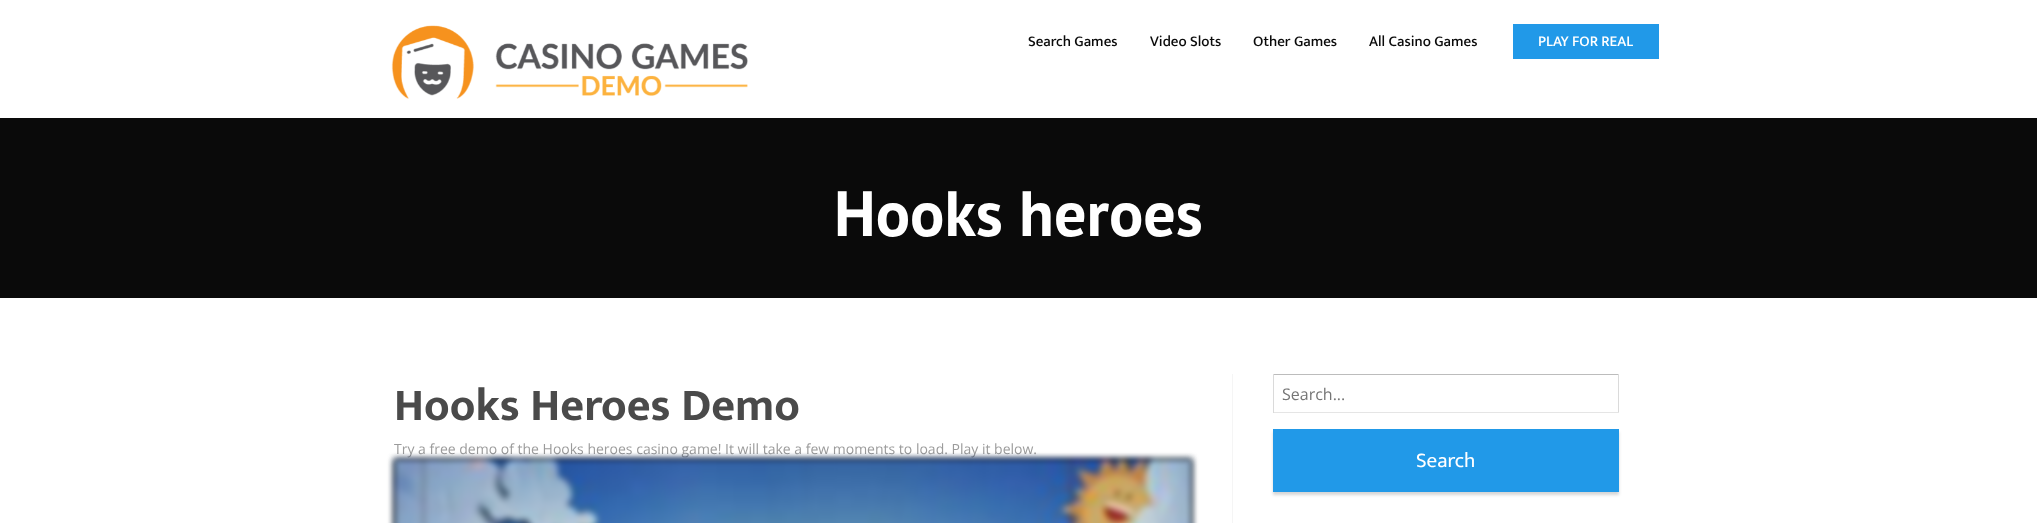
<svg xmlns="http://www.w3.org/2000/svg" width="2037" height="523">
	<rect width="100%" height="100%" fill="#FFFFFF" />
	<image x="391" y="25" width="357" height="74" href="assets/img1.png" />
	<g font-family="Ek Mukta" font-size="15" font-weight="500" fill="#0A0A0A">
		<text x="1028" y="46">Search Games</text>
		<text x="1150" y="46">Video Slots</text>
		<text x="1253" y="46">Other Games</text>
		<text x="1369" y="46">All Casino Games</text>
	</g>
	<rect x="1513" y="24" width="146" height="35" fill="#2199E8" />
	<text x="1538" y="46" font-family="Ek Mukta" font-size="15" font-weight="500" fill="#FFFFFF">PLAY FOR REAL</text>
	<rect x="0" y="118" width="2037" height="180" fill="#0A0A0A" />
	<text x="834" y="236" font-family="PT Sans" font-size="64" font-weight="700" fill="#FFFFFF">Hooks heroes</text>
	<text x="394" y="420" font-family="Ek Mukta" font-size="46" font-weight="700" fill="#4A4A4A">Hooks Heroes Demo</text>
	<text x="394" y="454" font-family="Open Sans" font-size="14" fill="#9B9B9B">Try a free demo of the Hooks heroes casino game! It will take a few moments to load. Play it below.</text>
	<rect x="394" y="459" width="798" height="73" fill="#000000" filter="blur(3px)" />
	<image x="388" y="453" width="809" height="70" href="assets/img2.png" />
	<rect x="1232" y="374" width="1" height="149" fill="#F5F5F5" />
	<rect x="1273" y="374" width="346" height="1" fill="#BCBCBC" />
	<rect x="1618" y="374" width="1" height="39" fill="#DADADA" />
	<rect x="1273" y="412" width="346" height="1" fill="#E5E5E5" />
	<rect x="1273" y="374" width="1" height="39" fill="#DADADA" />
	<text x="1282" y="400" font-family="Open Sans" font-size="16" fill="#757575">Search...</text>
	<rect x="1273" y="432" width="346" height="63" fill="#000000" fill-opacity="0.16" filter="blur(1.5px)" />
	<rect x="1273" y="429" width="346" height="63" fill="#2199E8" />
	<text x="1416" y="467" font-family="Ek Mukta" font-size="21" fill="#FFFFFF">Search</text>
</svg>
